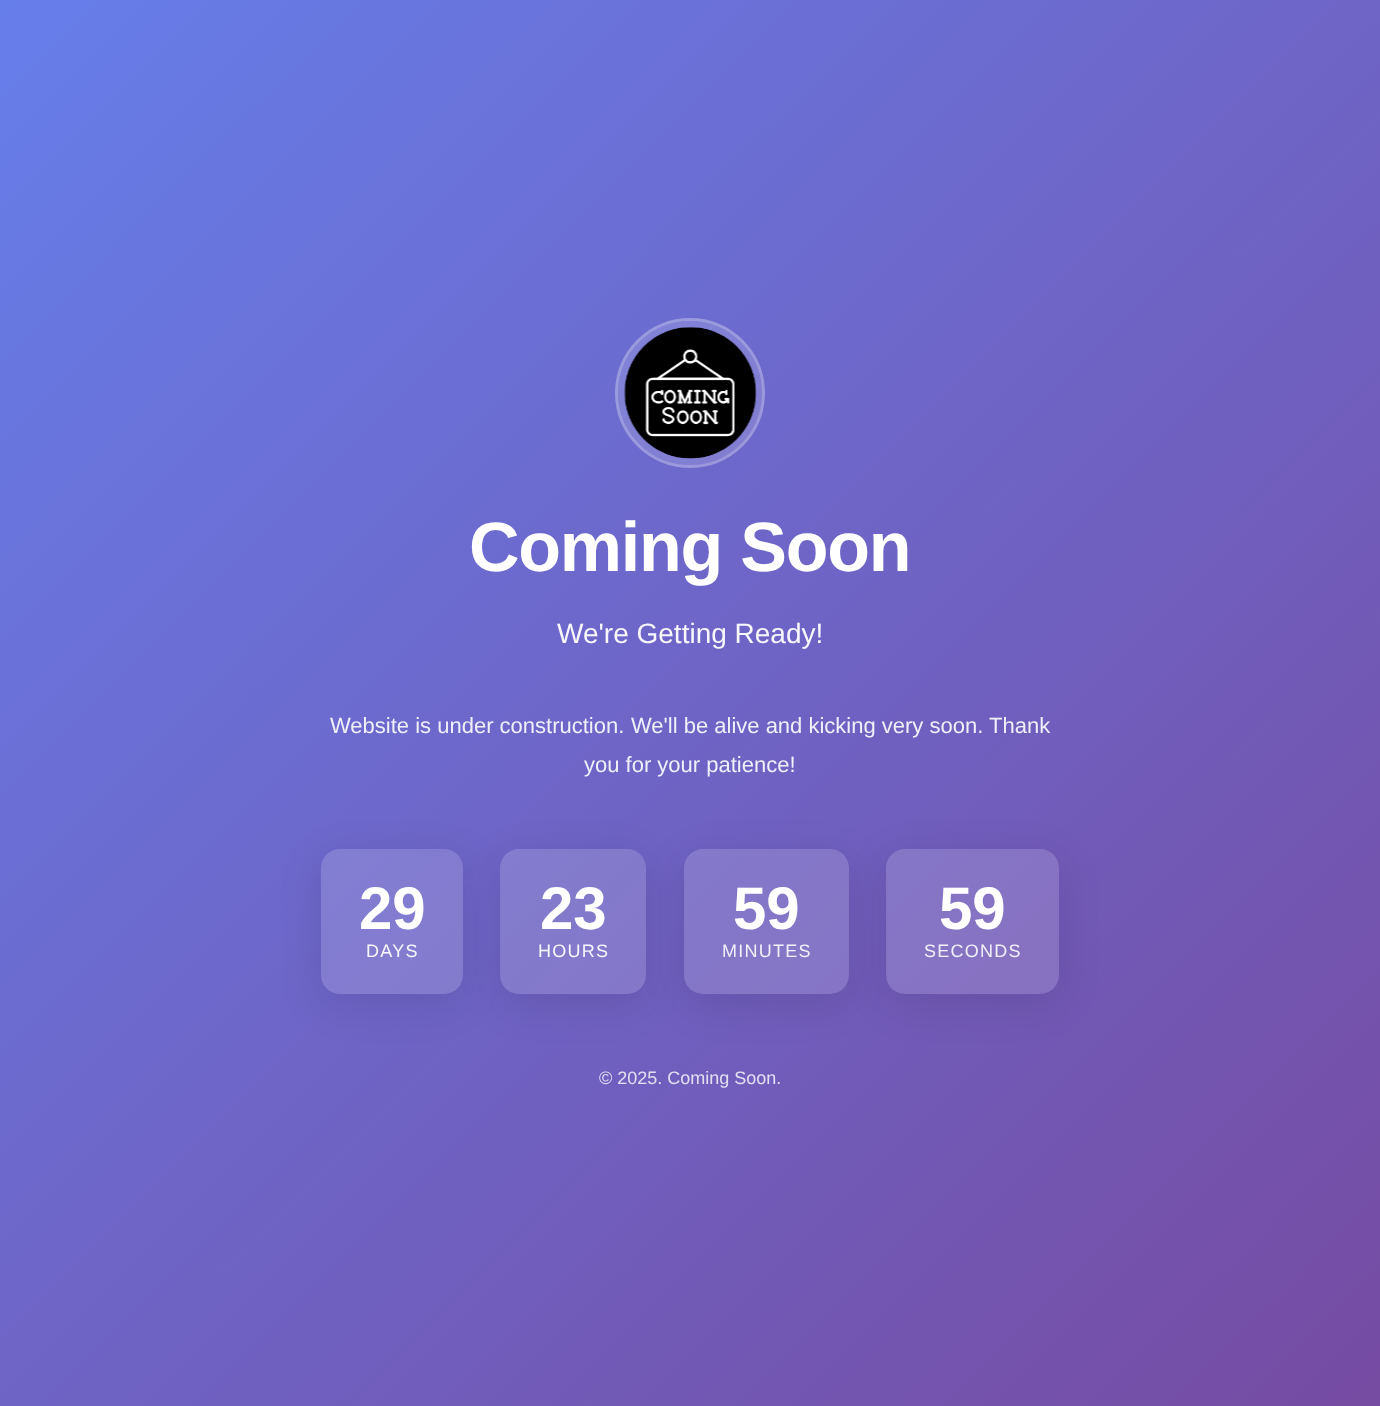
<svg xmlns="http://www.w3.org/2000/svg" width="1380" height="1406">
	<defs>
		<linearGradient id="g1" gradientUnits="userSpaceOnUse" x1="-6.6" y1="6.6" x2="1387" y2="1400"><stop offset="0" stop-color="#667EEA" /><stop offset="1" stop-color="#764BA2" /></linearGradient>
		<clipPath id="clip1"><path d="M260 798H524V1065H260ZM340 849H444C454.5 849 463 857.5 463 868V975C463 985.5 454.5 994 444 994H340C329.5 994 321 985.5 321 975V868C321 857.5 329.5 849 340 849Z" clip-rule="evenodd" /></clipPath>
		<clipPath id="clip2"><path d="M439 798H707V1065H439ZM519 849H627C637.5 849 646 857.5 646 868V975C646 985.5 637.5 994 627 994H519C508.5 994 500 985.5 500 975V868C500 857.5 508.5 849 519 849Z" clip-rule="evenodd" /></clipPath>
		<clipPath id="clip3"><path d="M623 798H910V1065H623ZM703 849H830C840.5 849 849 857.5 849 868V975C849 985.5 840.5 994 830 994H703C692.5 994 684 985.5 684 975V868C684 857.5 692.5 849 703 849Z" clip-rule="evenodd" /></clipPath>
		<clipPath id="clip4"><path d="M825 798H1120V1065H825ZM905 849H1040C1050.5 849 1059 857.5 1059 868V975C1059 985.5 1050.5 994 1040 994H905C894.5 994 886 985.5 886 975V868C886 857.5 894.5 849 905 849Z" clip-rule="evenodd" /></clipPath>
	</defs>
	<rect width="100%" height="100%" fill="#FFFFFF" />
	<rect x="0" y="0" width="1380" height="1406" fill="url(#g1)" />
	<circle cx="690" cy="393" r="75" fill="#FFFFFF" fill-opacity="0.15" />
	<circle cx="690" cy="393" r="73.5" fill="none" stroke="#FFFFFF" stroke-opacity="0.2" stroke-width="3" />
	<image x="624" y="327" width="133" height="132" href="assets/img1.png" />
	<text x="469" y="571" font-family="Liberation Sans" font-size="70" font-weight="700" letter-spacing="-1.25" fill="#FFFFFF">Coming Soon</text>
	<text x="557" y="643" font-family="Liberation Sans" font-size="28" fill="#F8F7FC">We're Getting Ready!</text>
	<g font-family="Liberation Sans" font-size="22" fill="#F0F0FA">
		<text x="330" y="733">Website is under construction.</text>
		<text x="631" y="733">We'll be alive and kicking very soon. Thank</text>
		<text x="584" y="772">you for your patience!</text>
	</g>
	<g clip-path="url(#clip1)">
		<rect x="321" y="859" width="142" height="145" rx="19" fill="#000000" fill-opacity="0.1" filter="blur(20px)" />
	</g>
	<rect x="321" y="849" width="142" height="145" rx="19" fill="#FFFFFF" fill-opacity="0.15" />
	<text x="359" y="929" font-family="Liberation Sans" font-size="60" font-weight="700" fill="#FFFFFF">29</text>
	<text x="366" y="957" font-family="Liberation Sans" font-size="18" letter-spacing="1.25" fill="#F8F7FC">DAYS</text>
	<g clip-path="url(#clip2)">
		<rect x="500" y="859" width="146" height="145" rx="19" fill="#000000" fill-opacity="0.1" filter="blur(20px)" />
	</g>
	<rect x="500" y="849" width="146" height="145" rx="19" fill="#FFFFFF" fill-opacity="0.15" />
	<text x="540" y="929" font-family="Liberation Sans" font-size="60" font-weight="700" fill="#FFFFFF">23</text>
	<text x="538" y="957" font-family="Liberation Sans" font-size="18" letter-spacing="1.25" fill="#F8F7FC">HOURS</text>
	<g clip-path="url(#clip3)">
		<rect x="684" y="859" width="165" height="145" rx="19" fill="#000000" fill-opacity="0.1" filter="blur(20px)" />
	</g>
	<rect x="684" y="849" width="165" height="145" rx="19" fill="#FFFFFF" fill-opacity="0.15" />
	<text x="733" y="929" font-family="Liberation Sans" font-size="60" font-weight="700" fill="#FFFFFF">59</text>
	<text x="722" y="957" font-family="Liberation Sans" font-size="18" letter-spacing="1.25" fill="#F0F0FA">MINUTES</text>
	<g clip-path="url(#clip4)">
		<rect x="886" y="859" width="173" height="145" rx="19" fill="#000000" fill-opacity="0.1" filter="blur(20px)" />
	</g>
	<rect x="886" y="849" width="173" height="145" rx="19" fill="#FFFFFF" fill-opacity="0.15" />
	<text x="939" y="929" font-family="Liberation Sans" font-size="60" font-weight="700" fill="#FFFFFF">59</text>
	<text x="924" y="957" font-family="Liberation Sans" font-size="18" letter-spacing="1.25" fill="#F0F0FA">SECONDS</text>
	<text x="599" y="1084" font-family="Liberation Sans" font-size="18" fill="#E2DFF2">© 2025. Coming Soon.</text>
</svg>
